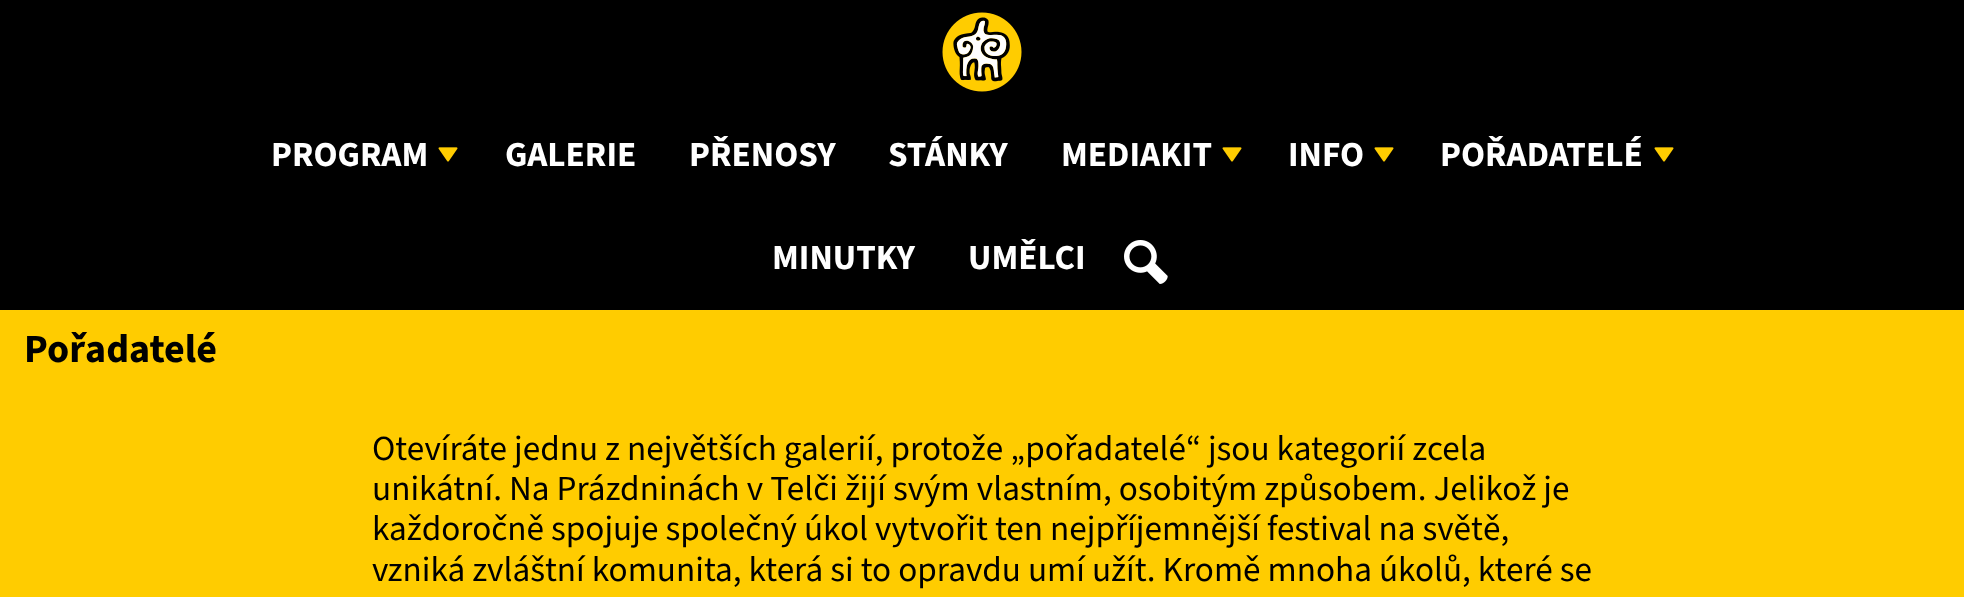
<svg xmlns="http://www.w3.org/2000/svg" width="1964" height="597">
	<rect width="100%" height="100%" fill="#000000" />
	<image x="942" y="12" width="80" height="80" href="assets/img1.png" />
	<text x="271" y="166" font-family="'Source Sans 3'" font-size="35.2" font-weight="700" fill="#FFFFFF">PROGRAM</text>
	<image x="438" y="147" width="20" height="15" href="assets/img2.png" />
	<g font-family="'Source Sans 3'" font-size="35.2" font-weight="700" fill="#FFFFFF">
		<text x="505" y="166">GALERIE</text>
		<text x="689" y="166">PŘENOSY</text>
		<text x="888" y="166">STÁNKY</text>
		<text x="1061" y="166">MEDIAKIT</text>
	</g>
	<image x="1222" y="147" width="20" height="15" href="assets/img2.png" />
	<text x="1288" y="166" font-family="'Source Sans 3'" font-size="35.2" font-weight="700" fill="#FFFFFF">INFO</text>
	<image x="1374" y="147" width="20" height="15" href="assets/img2.png" />
	<text x="1440" y="166" font-family="'Source Sans 3'" font-size="35.2" font-weight="700" fill="#FFFFFF">POŘADATELÉ</text>
	<image x="1654" y="147" width="20" height="15" href="assets/img2.png" />
	<g font-family="'Source Sans 3'" font-size="35.2" font-weight="700" fill="#FFFFFF">
		<text x="772" y="269">MINUTKY</text>
		<text x="968" y="269">UMĚLCI</text>
	</g>
	<image x="1124" y="240" width="44" height="44" href="assets/img3.png" />
	<rect x="0" y="310" width="1964" height="287" fill="#FFCC00" />
	<text x="24" y="362" font-family="'Source Sans 3'" font-size="40" font-weight="700" fill="#000000">Pořadatelé</text>
	<g font-family="'Source Sans 3'" font-size="35.2" fill="#000000">
		<text x="372" y="460">Otevíráte jednu z největších galerií, protože „pořadatelé“ jsou kategorií zcela</text>
		<text x="372" y="500">unikátní. Na Prázdninách v Telči žijí svým vlastním, osobitým způsobem. Jelikož je</text>
		<text x="372" y="540">každoročně spojuje společný úkol vytvořit ten nejpříjemnější festival na světě,</text>
		<text x="372" y="581">vzniká zvláštní komunita, která si to opravdu umí užít. Kromě mnoha úkolů, které se</text>
	</g>
</svg>
